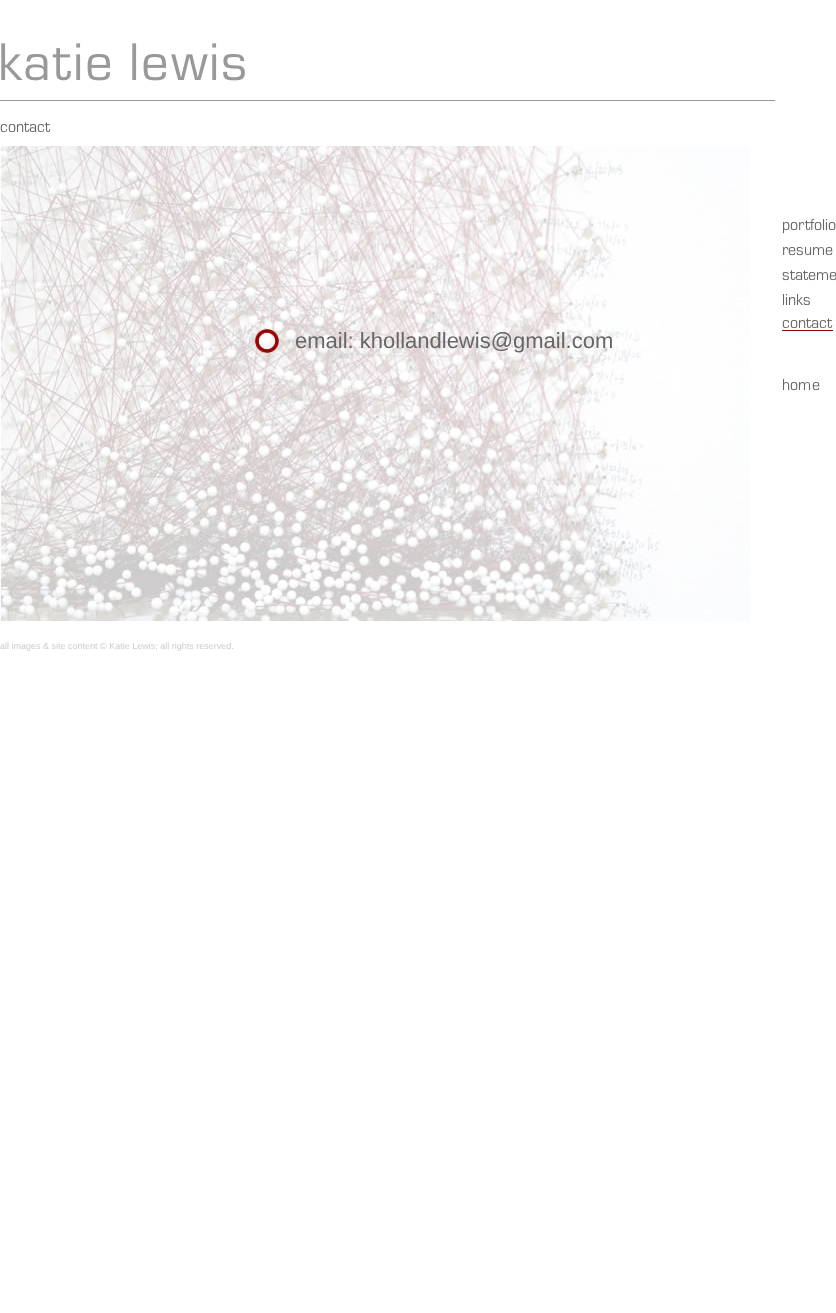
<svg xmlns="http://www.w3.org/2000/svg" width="836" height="1313">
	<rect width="100%" height="100%" fill="#FFFFFF" />
	<image x="1" y="43" width="244" height="38" href="assets/img1.png" />
	<rect x="0" y="100" width="775" height="1" fill="#999999" />
	<image x="0" y="146" width="750" height="475" href="assets/img2.png" />
	<image x="0" y="122" width="51" height="11" href="assets/img3.png" />
	<text x="295" y="348" font-family="Liberation Sans" font-size="22" fill="#666666">email: khollandlewis@gmail.com</text>
	<image x="783" y="218" width="53" height="16" href="assets/img4.png" />
	<image x="783" y="247" width="50" height="9" href="assets/img5.png" />
	<image x="782" y="270" width="54" height="11" href="assets/img6.png" />
	<image x="783" y="294" width="27" height="12" href="assets/img7.png" />
	<image x="782" y="318" width="51" height="13" href="assets/img8.png" />
	<image x="783" y="379" width="37" height="12" href="assets/img9.png" />
	<text x="0" y="649" font-family="Liberation Sans" font-size="9" fill="#CCCCCC">all images &amp; site content © Katie Lewis; all rights reserved.</text>
</svg>
